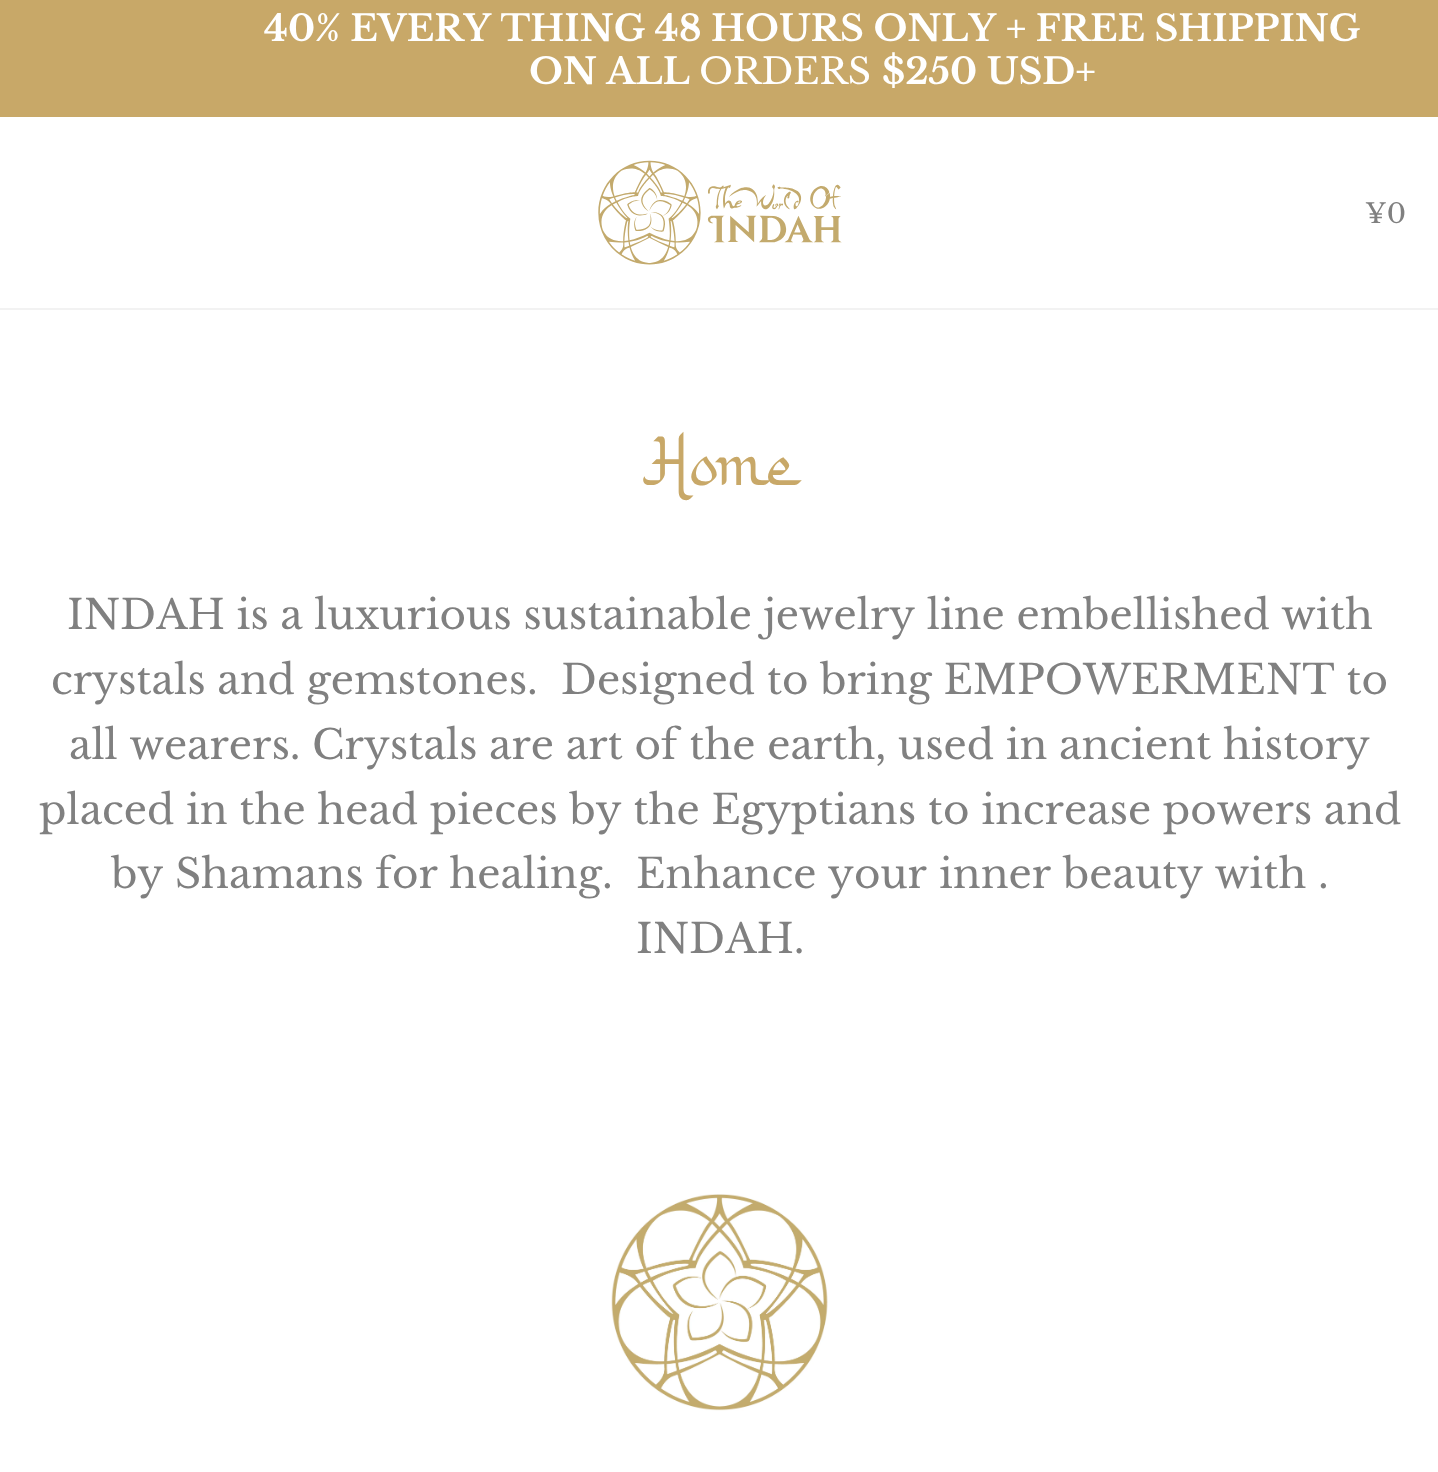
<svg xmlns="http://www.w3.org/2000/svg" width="1438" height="1472">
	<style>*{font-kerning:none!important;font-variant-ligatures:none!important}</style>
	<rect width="100%" height="100%" fill="#FFFFFF" />
	<rect x="0" y="0" width="1438" height="117" fill="#C8A868" />
	<g font-family="Libre Baskerville" font-size="36" font-weight="700" fill="#FFFFFF">
		<text x="264" y="41">40% EVERY THING 48 HOURS ONLY</text>
		<text x="1006" y="41">+ FREE SHIPPING</text>
		<text x="529" y="84">ON ALL</text>
	</g>
	<text x="699" y="84" font-family="Libre Baskerville" font-size="36" fill="#FFFFFF">ORDERS</text>
	<text x="882" y="84" font-family="Libre Baskerville" font-size="36" font-weight="700" fill="#FFFFFF">$250 USD+</text>
	<rect x="0" y="308" width="1438" height="2" fill="#F2F2F2" />
	<image x="598" y="160" width="244" height="105" href="assets/img1.png" />
	<text x="1365" y="223" font-family="Libre Baskerville" font-size="27" fill="#808080">¥0</text>
	<text x="640" y="485" font-family="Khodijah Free" font-size="63" fill="#C8A868">Home</text>
	<g font-family="Libre Baskerville" font-size="40.5" fill="#808080">
		<text x="67" y="629">INDAH is a luxurious sustainable jewelry line embellished with</text>
		<text x="51" y="694" xml:space="preserve">crystals and gemstones.  Designed to bring EMPOWERMENT to</text>
		<text x="69" y="759">all wearers. Crystals are art of the earth, used in ancient history</text>
		<text x="39" y="824">placed in the head pieces by the Egyptians to increase powers and</text>
		<text x="111" y="888" xml:space="preserve">by Shamans for healing.  Enhance your</text>
		<text x="939" y="888">inner beauty with .</text>
		<text x="636" y="953">INDAH.</text>
	</g>
	<image x="611" y="1194" width="217" height="217" href="assets/img2.png" />
</svg>
